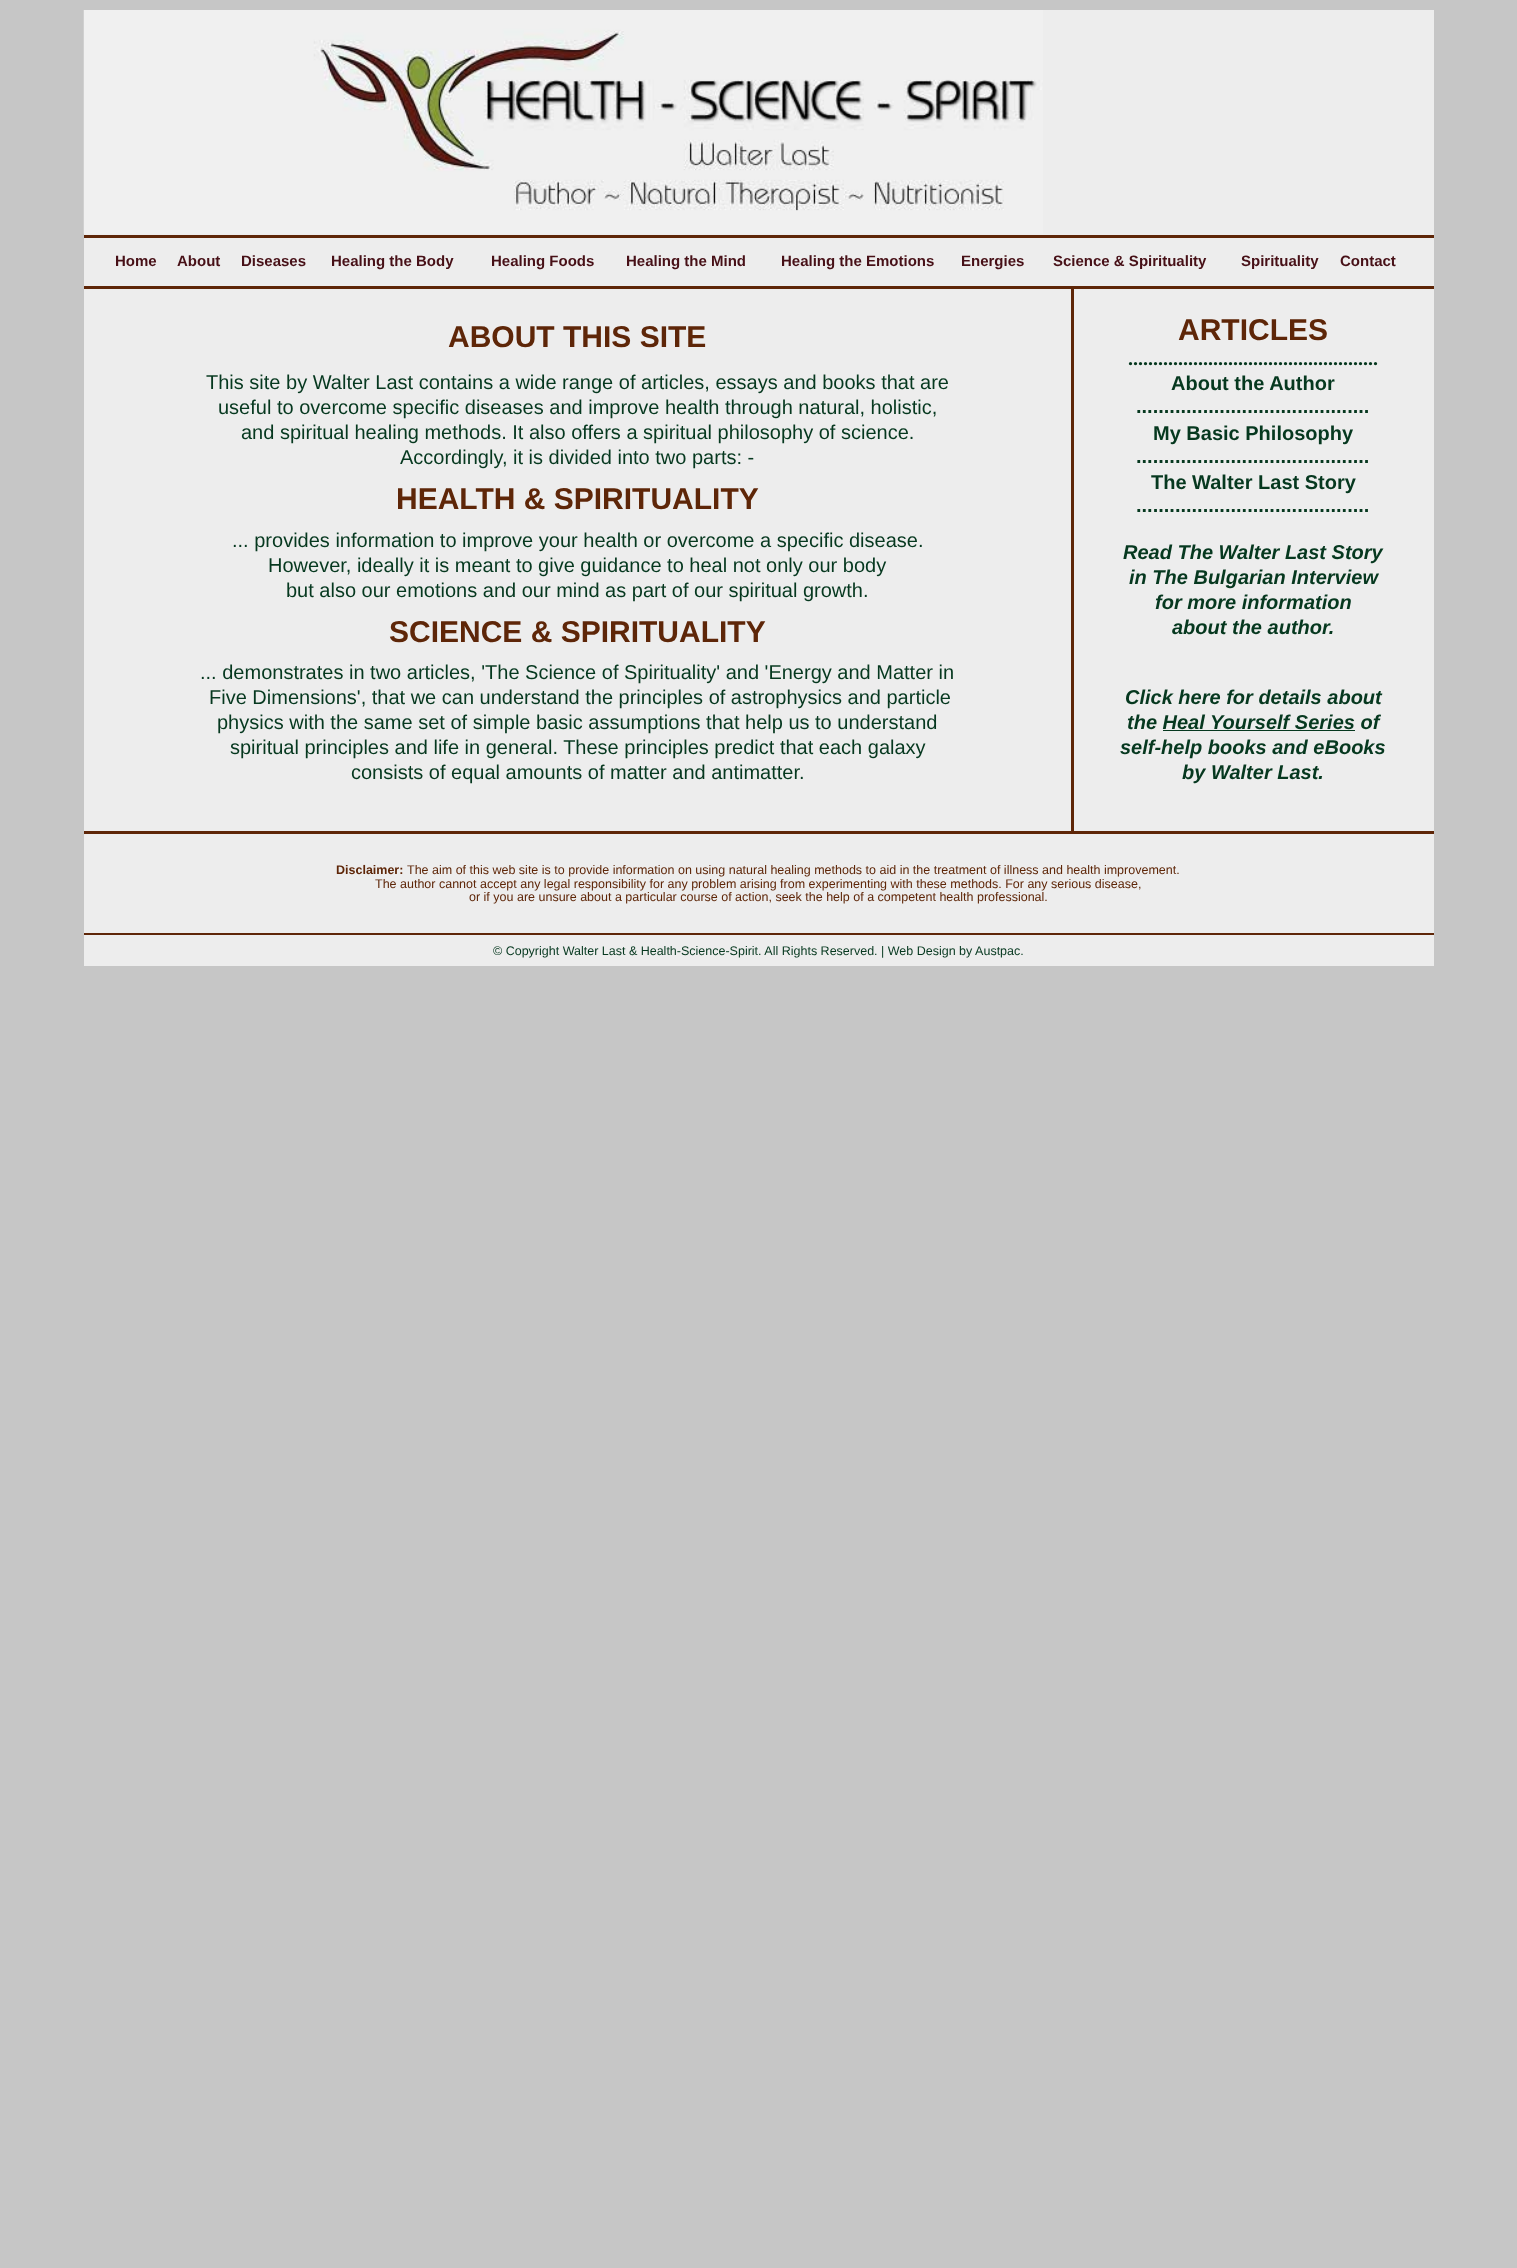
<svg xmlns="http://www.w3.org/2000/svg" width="1517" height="2268">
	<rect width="100%" height="100%" fill="#C6C6C6" />
	<rect x="84" y="10" width="1350" height="225" fill="#EDEDED" />
	<image x="83" y="10" width="960" height="224" href="assets/img1.png" />
	<rect x="84" y="235" width="1350" height="3" fill="#5E2608" />
	<rect x="84" y="238" width="1350" height="48" fill="#EDEDED" />
	<g font-family="Liberation Sans" font-size="15" font-weight="700" fill="#471017">
		<text x="115" y="266">Home</text>
		<text x="177" y="266">About</text>
		<text x="241" y="266">Diseases</text>
		<text x="331" y="266">Healing the Body</text>
		<text x="491" y="266">Healing Foods</text>
		<text x="626" y="266">Healing the Mind</text>
		<text x="781" y="266">Healing the Emotions</text>
		<text x="961" y="266">Energies</text>
		<text x="1053" y="266">Science &amp; Spirituality</text>
		<text x="1241" y="266">Spirituality</text>
		<text x="1340" y="266">Contact</text>
	</g>
	<rect x="84" y="286" width="1350" height="3" fill="#5E2608" />
	<rect x="84" y="289" width="987" height="542" fill="#EDEDED" />
	<rect x="1071" y="289" width="3" height="542" fill="#5E2608" />
	<rect x="1074" y="289" width="360" height="542" fill="#EDEDED" />
	<text x="1178" y="340" font-family="Liberation Sans" font-size="30" font-weight="700" fill="#5E2608">ARTICLES</text>
	<text x="1128" y="365" font-family="Liberation Serif" font-size="20" font-weight="700" fill="#06381F">..................................................</text>
	<g font-family="Liberation Sans" font-size="20" font-weight="700" fill="#06381F">
		<text x="1171" y="390">About the Author</text>
		<text x="1136" y="413">..........................................</text>
		<text x="1153" y="440">My Basic Philosophy</text>
		<text x="1136" y="463">..........................................</text>
		<text x="1151" y="489">The Walter Last Story</text>
		<text x="1136" y="512">..........................................</text>
	</g>
	<g font-family="Liberation Sans" font-size="20" font-weight="700" font-style="italic" fill="#06381F">
		<text x="1123" y="559">Read The Walter Last Story</text>
		<text x="1129" y="584">in The Bulgarian Interview</text>
		<text x="1155" y="609">for more information</text>
		<text x="1172" y="634">about the author.</text>
		<text x="1125" y="704">Click here for details about</text>
		<text x="1127" y="729">the Heal Yourself Series of</text>
	</g>
	<rect x="1163" y="730" width="192" height="1" fill="#06381F" />
	<g font-family="Liberation Sans" font-size="20" font-weight="700" font-style="italic" fill="#06381F">
		<text x="1120" y="754">self-help books and eBooks</text>
		<text x="1182" y="779">by Walter Last.</text>
	</g>
	<text x="448" y="347" font-family="Liberation Sans" font-size="30" font-weight="700" fill="#5E2608">ABOUT THIS SITE</text>
	<g font-family="Liberation Sans" font-size="20" fill="#06381F">
		<text x="206" y="389">This site by Walter Last contains a wide range of articles, essays and books that are</text>
		<text x="218" y="414">useful to overcome specific diseases and improve health through natural, holistic,</text>
		<text x="241" y="439">and spiritual healing methods. It also offers a spiritual philosophy of science.</text>
		<text x="400" y="464">Accordingly, it is divided into two parts: -</text>
	</g>
	<text x="396" y="509" font-family="Liberation Sans" font-size="30" font-weight="700" fill="#5E2608">HEALTH &amp; SPIRITUALITY</text>
	<g font-family="Liberation Sans" font-size="20" fill="#06381F">
		<text x="232" y="547">... provides information to improve your health or overcome a specific disease.</text>
		<text x="268" y="572">However, ideally it is meant to give guidance to heal not only our body</text>
		<text x="286" y="597">but also our emotions and our mind as part of our spiritual growth.</text>
	</g>
	<text x="389" y="642" font-family="Liberation Sans" font-size="30" font-weight="700" fill="#5E2608">SCIENCE &amp; SPIRITUALITY</text>
	<g font-family="Liberation Sans" font-size="20" fill="#06381F">
		<text x="200" y="679">... demonstrates in two articles, 'The Science of Spirituality' and 'Energy and Matter in</text>
		<text x="209" y="704">Five Dimensions', that we can understand the principles of astrophysics and particle</text>
		<text x="217" y="729">physics with the same set of simple basic assumptions that help us to understand</text>
		<text x="230" y="754">spiritual principles and life in general. These principles predict that each galaxy</text>
		<text x="351" y="779">consists of equal amounts of matter and antimatter.</text>
	</g>
	<rect x="84" y="831" width="1350" height="3" fill="#5E2608" />
	<rect x="84" y="834" width="1350" height="99" fill="#EDEDED" />
	<text x="336" y="874" font-family="Liberation Sans" font-size="12.5" font-weight="700" fill="#5E2608">Disclaimer:</text>
	<g font-family="Liberation Sans" font-size="12.5" fill="#5E2608">
		<text x="407" y="874">The aim of this web site is to provide information on using natural healing methods to aid in the treatment of illness and health improvement.</text>
		<text x="375" y="888">The author cannot accept any legal responsibility for any problem arising from experimenting with these methods. For any serious disease,</text>
		<text x="469" y="901">or if you are unsure about a particular course of action, seek the help of a competent health professional.</text>
	</g>
	<rect x="84" y="933" width="1350" height="2" fill="#5E2608" />
	<rect x="84" y="935" width="1350" height="31" fill="#EDEDED" />
	<text x="493" y="955" font-family="Liberation Sans" font-size="12.5" fill="#06381F">© Copyright Walter Last &amp; Health-Science-Spirit. All Rights Reserved. | Web Design by Austpac.</text>
</svg>
